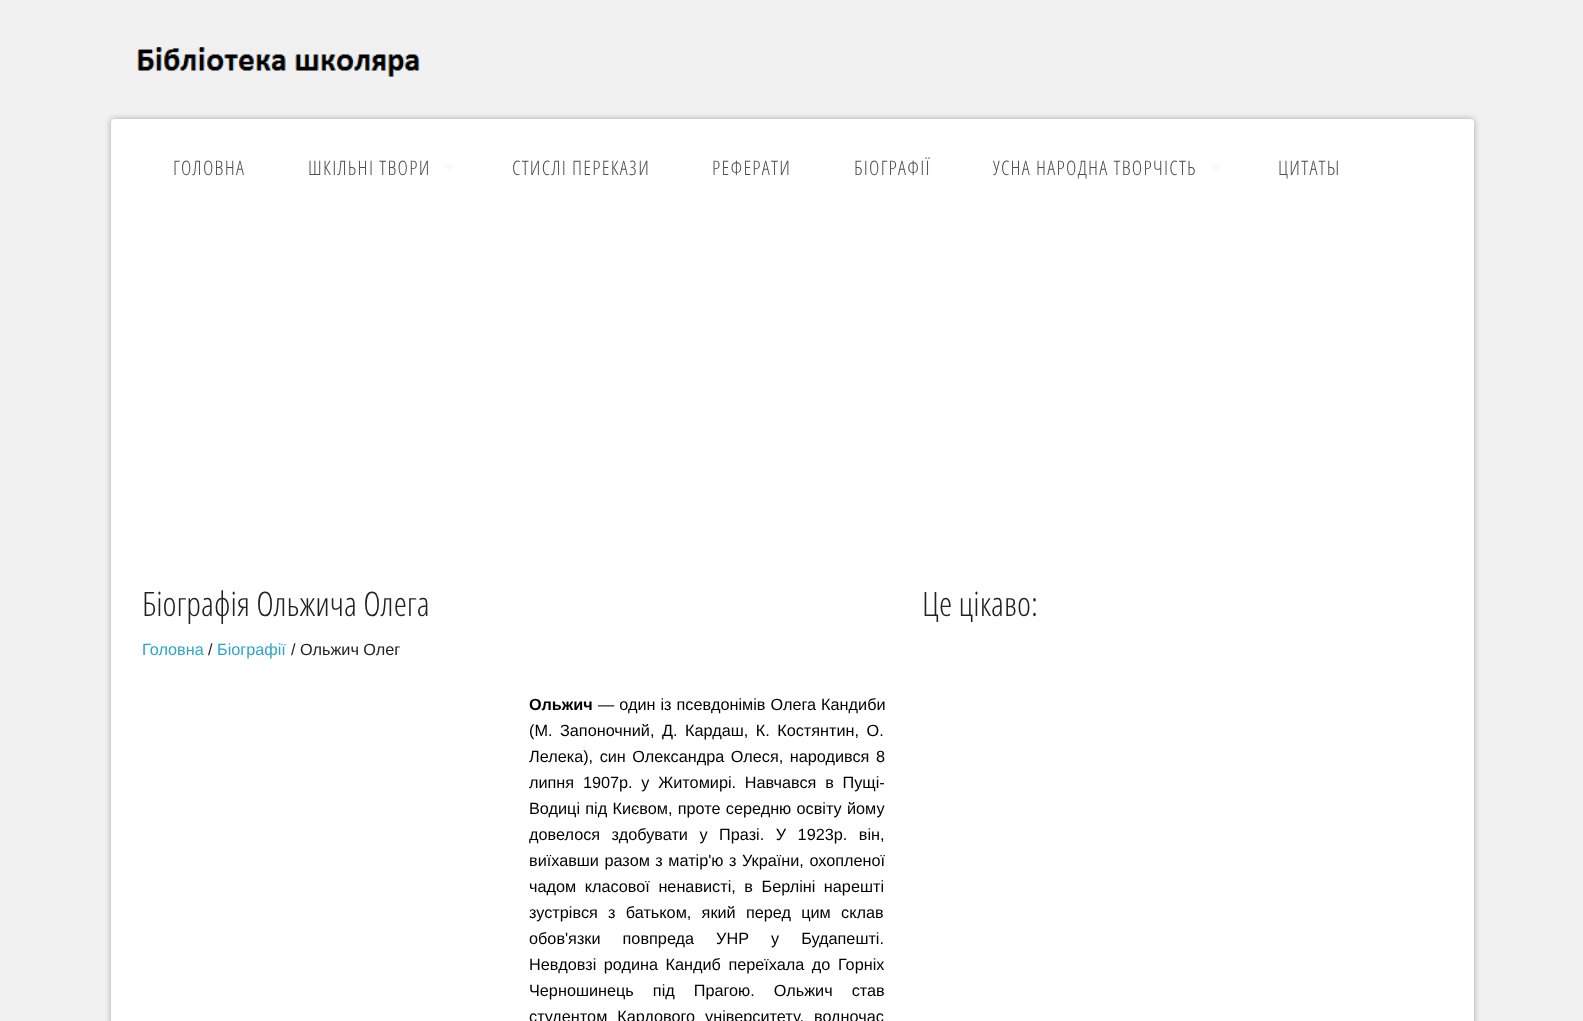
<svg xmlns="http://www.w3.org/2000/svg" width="1583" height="1021">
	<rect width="100%" height="100%" fill="#F1F1F1" />
	<image x="137" y="47" width="283" height="30" href="assets/img1.png" />
	<rect x="111" y="119" width="1363" height="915" rx="4" fill="#000000" fill-opacity="0.3" filter="blur(3px)" />
	<rect x="111" y="119" width="1363" height="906" rx="4" fill="#FFFFFF" />
	<g font-family="Open Sans Condensed" font-size="20" font-weight="300" letter-spacing="1.25" fill="#4D4D4D">
		<text x="173" y="175">ГОЛОВНА</text>
		<text x="308" y="175">ШКІЛЬНІ ТВОРИ</text>
	</g>
	<path d="M442.5 165H455L449 171Z" fill="#F8F8F8" />
	<g font-family="Open Sans Condensed" font-size="20" font-weight="300" letter-spacing="1.25" fill="#4D4D4D">
		<text x="512" y="175">СТИСЛІ ПЕРЕКАЗИ</text>
		<text x="712" y="175">РЕФЕРАТИ</text>
		<text x="854" y="175">БІОГРАФІЇ</text>
		<text x="993" y="175">УСНА НАРОДНА ТВОРЧІСТЬ</text>
	</g>
	<path d="M1210 165H1222.5L1216 171Z" fill="#F8F8F8" />
	<text x="1278" y="175" font-family="Open Sans Condensed" font-size="20" font-weight="300" letter-spacing="1.25" fill="#4D4D4D">ЦИТАТЫ</text>
	<text x="142" y="616" font-family="Open Sans Condensed" font-size="33.75" font-weight="300" fill="#222222">Біографія Ольжича Олега</text>
	<text x="142" y="655" font-family="Liberation Sans" font-size="16.25" fill="#2BA6CB">Головна</text>
	<text x="208" y="655" font-family="Liberation Sans" font-size="16.25" fill="#222222">/</text>
	<text x="217" y="655" font-family="Liberation Sans" font-size="16.25" fill="#2BA6CB">Біографії</text>
	<text x="291" y="655" font-family="Liberation Sans" font-size="16.25" fill="#222222">/ Ольжич Олег</text>
	<text x="529" y="710" font-family="Liberation Sans" font-size="16.25" font-weight="700" fill="#000000">Ольжич</text>
	<g font-family="Liberation Sans" font-size="16.25" fill="#000000">
		<text x="598" y="710" word-spacing="0.5">— один із псевдонімів Олега Кандиби</text>
		<text x="529" y="736" word-spacing="3">(М. Запоночний, Д. Кардаш, К. Костянтин, О.</text>
		<text x="529" y="762" word-spacing="2">Лелека), син Олександра Олеся, народився 8</text>
		<text x="529" y="788" word-spacing="4.25">липня 1907р. у Житомирі. Навчався в Пущі-</text>
		<text x="529" y="814" word-spacing="0.75">Водиці під Києвом, проте середню освіту йому</text>
		<text x="529" y="840" word-spacing="7">довелося здобувати у Празі. У 1923p. він,</text>
		<text x="529" y="866" word-spacing="1">виїхавши разом з матір'ю з України, охопленої</text>
		<text x="529" y="892" word-spacing="4">чадом класової ненависті, в Берліні нарешті</text>
		<text x="529" y="918" word-spacing="5.75">зустрівся з батьком, який перед цим склав</text>
		<text x="529" y="944" word-spacing="17.5">обов'язки повпреда УНР у Будапешті.</text>
		<text x="529" y="970" word-spacing="3">Невдовзі родина Кандиб переїхала до Горніх</text>
		<text x="529" y="996" word-spacing="14.5">Черношинець під Прагою. Ольжич став</text>
		<text x="529" y="1022" word-spacing="5.5">студентом Кардового університету, водночас</text>
	</g>
	<text x="922" y="616" font-family="Open Sans Condensed" font-size="33.75" font-weight="300" fill="#222222">Це цікаво:</text>
</svg>
